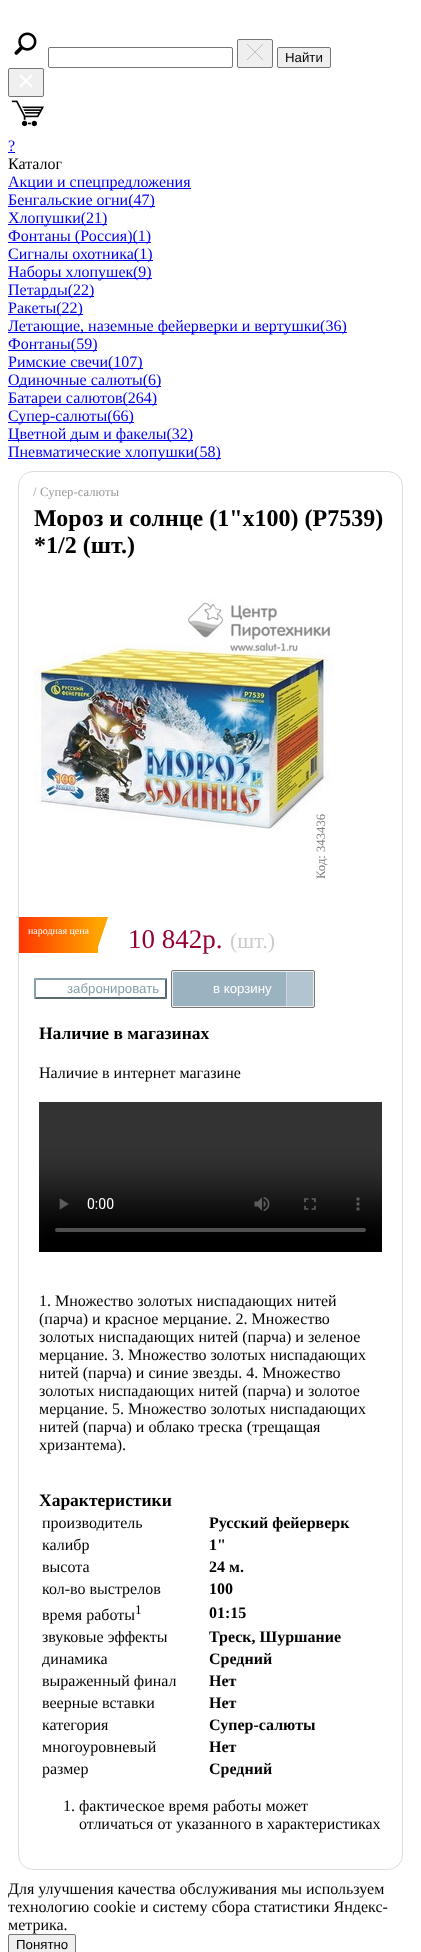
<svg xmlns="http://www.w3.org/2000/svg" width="421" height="1952">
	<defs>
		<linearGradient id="g1" gradientUnits="userSpaceOnUse" x1="19" y1="935" x2="98" y2="935"><stop offset="0" stop-color="#FF3502" /><stop offset="1" stop-color="#FFA500" /></linearGradient>
	</defs>
	<rect width="100%" height="100%" fill="#FFFFFF" />
	<image x="14" y="32" width="23" height="23" href="assets/img1.png" />
	<rect x="48.5" y="47.5" width="184" height="20" rx="1.5" fill="none" stroke="#767676" />
	<rect x="237.5" y="39.5" width="35" height="28" rx="1.5" fill="#EFEFEF" stroke="#767676" />
	<path d="M247 44L263 60M247 60L263 44" fill="none" stroke="#000000" stroke-width="0.2" />
	<rect x="277.5" y="47.5" width="53" height="20" rx="1.5" fill="#EFEFEF" stroke="#767676" />
	<text x="285" y="62" font-family="Liberation Sans" font-size="13.25" fill="#000000">Найти</text>
	<rect x="8.5" y="68.5" width="35" height="28" rx="1.5" fill="#EFEFEF" stroke="#767676" />
	<path d="M20 75L32 87M20 87L32 75" fill="none" stroke="#FFFFFF" stroke-width="2" />
	<image x="11" y="100" width="33" height="27" href="assets/img2.png" />
	<text x="8" y="151" font-family="Liberation Serif" font-size="16" fill="#0000EE">?</text>
	<rect x="8" y="152" width="7" height="1" fill="#0000EE" />
	<text x="8" y="169" font-family="Liberation Serif" font-size="16" fill="#000000">Каталог</text>
	<rect x="8" y="188" width="183" height="1" fill="#0000EE" />
	<text x="8" y="187" font-family="Liberation Serif" font-size="16" fill="#0000EE">Акции и спецпредложения</text>
	<rect x="8" y="206" width="147" height="1" fill="#0000EE" />
	<text x="8" y="205" font-family="Liberation Serif" font-size="16" fill="#0000EE">Бенгальские огни(47)</text>
	<rect x="8" y="224" width="99" height="1" fill="#0000EE" />
	<text x="8" y="223" font-family="Liberation Serif" font-size="16" fill="#0000EE">Хлопушки(21)</text>
	<rect x="8" y="242" width="143" height="1" fill="#0000EE" />
	<text x="8" y="241" font-family="Liberation Serif" font-size="16" fill="#0000EE">Фонтаны (Россия)(1)</text>
	<rect x="8" y="260" width="145" height="1" fill="#0000EE" />
	<text x="8" y="259" font-family="Liberation Serif" font-size="16" fill="#0000EE">Сигналы охотника(1)</text>
	<rect x="8" y="278" width="125" height="1" fill="#0000EE" />
	<text x="8" y="277" font-family="Liberation Serif" font-size="16" fill="#0000EE">Наборы хлопушек</text>
	<rect x="133" y="278" width="19" height="1" fill="#0000EE" />
	<text x="133" y="277" font-family="Liberation Serif" font-size="16" fill="#0000EE">(9)</text>
	<rect x="8" y="296" width="86" height="1" fill="#0000EE" />
	<text x="8" y="295" font-family="Liberation Serif" font-size="16" fill="#0000EE">Петарды(22)</text>
	<rect x="8" y="314" width="75" height="1" fill="#0000EE" />
	<text x="8" y="313" font-family="Liberation Serif" font-size="16" fill="#0000EE">Ракеты(22)</text>
	<rect x="8" y="332" width="339" height="1" fill="#0000EE" />
	<text x="8" y="331" font-family="Liberation Serif" font-size="16" fill="#0000EE">Летающие, наземные фейерверки и вертушки(36)</text>
	<rect x="8" y="350" width="89" height="1" fill="#0000EE" />
	<text x="8" y="349" font-family="Liberation Serif" font-size="16" fill="#0000EE">Фонтаны(59)</text>
	<rect x="8" y="368" width="135" height="1" fill="#0000EE" />
	<text x="8" y="367" font-family="Liberation Serif" font-size="16" fill="#0000EE">Римские свечи(107)</text>
	<rect x="8" y="386" width="153" height="1" fill="#0000EE" />
	<text x="8" y="385" font-family="Liberation Serif" font-size="16" fill="#0000EE">Одиночные салюты(6)</text>
	<rect x="8" y="404" width="149" height="1" fill="#0000EE" />
	<text x="8" y="403" font-family="Liberation Serif" font-size="16" fill="#0000EE">Батареи салютов(264)</text>
	<rect x="8" y="422" width="126" height="1" fill="#0000EE" />
	<text x="8" y="421" font-family="Liberation Serif" font-size="16" fill="#0000EE">Супер-салюты(66)</text>
	<rect x="8" y="440" width="185" height="1" fill="#0000EE" />
	<text x="8" y="439" font-family="Liberation Serif" font-size="16" fill="#0000EE">Цветной дым и факелы(32)</text>
	<rect x="8" y="458" width="213" height="1" fill="#0000EE" />
	<text x="8" y="457" font-family="Liberation Serif" font-size="16" fill="#0000EE">Пневматические хлопушки(58)</text>
	<rect x="18.5" y="471.5" width="384" height="1398" rx="14.5" fill="none" stroke="#DDDDDD" />
	<g font-family="Liberation Serif" font-size="12.75" fill="#999999">
		<text x="33" y="496">/</text>
		<text x="40" y="496">Супер-салюты</text>
	</g>
	<g font-family="Liberation Serif" font-size="24" font-weight="700" fill="#000000">
		<text x="34" y="526">Мороз и солнце (1"х100) (Р7539)</text>
		<text x="34" y="553">*1/2 (шт.)</text>
	</g>
	<image x="34" y="599" width="300" height="230" href="assets/img3.png" />
	<g font-family="Liberation Serif" font-size="12.75" fill="#808080">
		<text x="325" y="852" transform="rotate(-90 325 852)">343436</text>
		<text x="325" y="879" transform="rotate(-90 325 879)">Код:</text>
	</g>
	<rect x="19" y="917" width="79" height="36" fill="url(#g1)" />
	<text x="28" y="934" font-family="Liberation Serif" font-size="10" fill="#FFFFFF">народная цена</text>
	<path d="M98 917H108L98 947Z" fill="#FFA500" />
	<text x="128" y="948" font-family="Liberation Serif" font-size="27" fill="#950036">10 842р.</text>
	<text x="230" y="948" font-family="Liberation Serif" font-size="22" fill="#CCCCCC">(шт.)</text>
	<path d="M34 978H167L165 980H36Z" fill="#849FA7" />
	<path d="M167 978V999L165 997V980Z" fill="#586A6F" />
	<path d="M167 999H34L36 997H165Z" fill="#586A6F" />
	<path d="M34 999V978L36 980V997Z" fill="#849FA7" />
	<text x="67" y="993" font-family="Liberation Sans" font-size="13.25" fill="#849FA7">забронировать</text>
	<rect x="171.5" y="970.5" width="143" height="37" rx="1.5" fill="#EFEFEF" stroke="#767676" />
	<rect x="173" y="972" width="113" height="34" fill="#9BB2C1" />
	<text x="213" y="993" font-family="Liberation Sans" font-size="13.25" fill="#FFFFFF">в корзину</text>
	<rect x="287" y="972" width="26" height="34" fill="#B2C4CF" />
	<rect x="286" y="972" width="1" height="34" fill="#C9D6DD" />
	<text x="39" y="1039" font-family="Liberation Serif" font-size="17.5" font-weight="700" fill="#000000">Наличие в магазинах</text>
	<text x="39" y="1078" font-family="Liberation Serif" font-size="16" fill="#000000">Наличие в интернет магазине</text>
	<image x="39" y="1102" width="343" height="150" href="assets/img4.png" />
	<g font-family="Liberation Serif" font-size="16" fill="#000000">
		<text x="39" y="1306">1. Множество золотых ниспадающих нитей</text>
		<text x="39" y="1324">(парча) и красное мерцание. 2. Множество</text>
		<text x="39" y="1342">золотых ниспадающих нитей (парча) и зеленое</text>
		<text x="39" y="1360">мерцание. 3. Множество золотых ниспадающих</text>
		<text x="39" y="1378">нитей (парча) и синие звезды. 4. Множество</text>
		<text x="39" y="1396">золотых ниспадающих нитей (парча) и золотое</text>
		<text x="39" y="1414">мерцание. 5. Множество золотых ниспадающих</text>
		<text x="39" y="1432">нитей (парча) и облако треска (трещащая</text>
		<text x="39" y="1450">хризантема).</text>
	</g>
	<text x="39" y="1506" font-family="Liberation Serif" font-size="17.5" font-weight="700" fill="#000000">Характеристики</text>
	<text x="42" y="1528" font-family="Liberation Serif" font-size="16" fill="#000000">производитель</text>
	<text x="209" y="1528" font-family="Liberation Serif" font-size="16" font-weight="700" fill="#000000">Русский фейерверк</text>
	<text x="42" y="1550" font-family="Liberation Serif" font-size="16" fill="#000000">калибр</text>
	<text x="209" y="1550" font-family="Liberation Serif" font-size="16" font-weight="700" fill="#000000">1"</text>
	<text x="42" y="1572" font-family="Liberation Serif" font-size="16" fill="#000000">высота</text>
	<text x="209" y="1572" font-family="Liberation Serif" font-size="16" font-weight="700" fill="#000000">24 м.</text>
	<text x="42" y="1594" font-family="Liberation Serif" font-size="16" fill="#000000">кол-во выстрелов</text>
	<text x="209" y="1594" font-family="Liberation Serif" font-size="16" font-weight="700" fill="#000000">100</text>
	<text x="42" y="1620" font-family="Liberation Serif" font-size="16" fill="#000000">время работы</text>
	<text x="135" y="1614" font-family="Liberation Serif" font-size="13.25" fill="#000000">1</text>
	<text x="209" y="1618" font-family="Liberation Serif" font-size="16" font-weight="700" fill="#000000">01:15</text>
	<text x="42" y="1642" font-family="Liberation Serif" font-size="16" fill="#000000">звуковые эффекты</text>
	<text x="209" y="1642" font-family="Liberation Serif" font-size="16" font-weight="700" fill="#000000">Треск, Шуршание</text>
	<text x="42" y="1664" font-family="Liberation Serif" font-size="16" fill="#000000">динамика</text>
	<text x="209" y="1664" font-family="Liberation Serif" font-size="16" font-weight="700" fill="#000000">Средний</text>
	<text x="42" y="1686" font-family="Liberation Serif" font-size="16" fill="#000000">выраженный финал</text>
	<text x="209" y="1686" font-family="Liberation Serif" font-size="16" font-weight="700" fill="#000000">Нет</text>
	<text x="42" y="1708" font-family="Liberation Serif" font-size="16" fill="#000000">веерные вставки</text>
	<text x="209" y="1708" font-family="Liberation Serif" font-size="16" font-weight="700" fill="#000000">Нет</text>
	<text x="42" y="1730" font-family="Liberation Serif" font-size="16" fill="#000000">категория</text>
	<text x="209" y="1730" font-family="Liberation Serif" font-size="16" font-weight="700" fill="#000000">Супер-салюты</text>
	<text x="42" y="1752" font-family="Liberation Serif" font-size="16" fill="#000000">многоуровневый</text>
	<text x="209" y="1752" font-family="Liberation Serif" font-size="16" font-weight="700" fill="#000000">Нет</text>
	<text x="42" y="1774" font-family="Liberation Serif" font-size="16" fill="#000000">размер</text>
	<text x="209" y="1774" font-family="Liberation Serif" font-size="16" font-weight="700" fill="#000000">Средний</text>
	<g font-family="Liberation Serif" font-size="16" fill="#000000">
		<text x="63" y="1811">1. фактическое время работы может</text>
		<text x="79" y="1829">отличаться от указанного в характеристиках</text>
		<text x="8" y="1894">Для улучшения качества обслуживания мы используем</text>
		<text x="8" y="1912">технологию cookie и систему сбора статистики Яндекс-</text>
		<text x="8" y="1930">метрика.</text>
	</g>
	<rect x="8.5" y="1934.5" width="67" height="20" rx="1.5" fill="#EFEFEF" stroke="#767676" />
	<text x="16" y="1949" font-family="Liberation Sans" font-size="13.25" fill="#000000">Понятно</text>
</svg>
